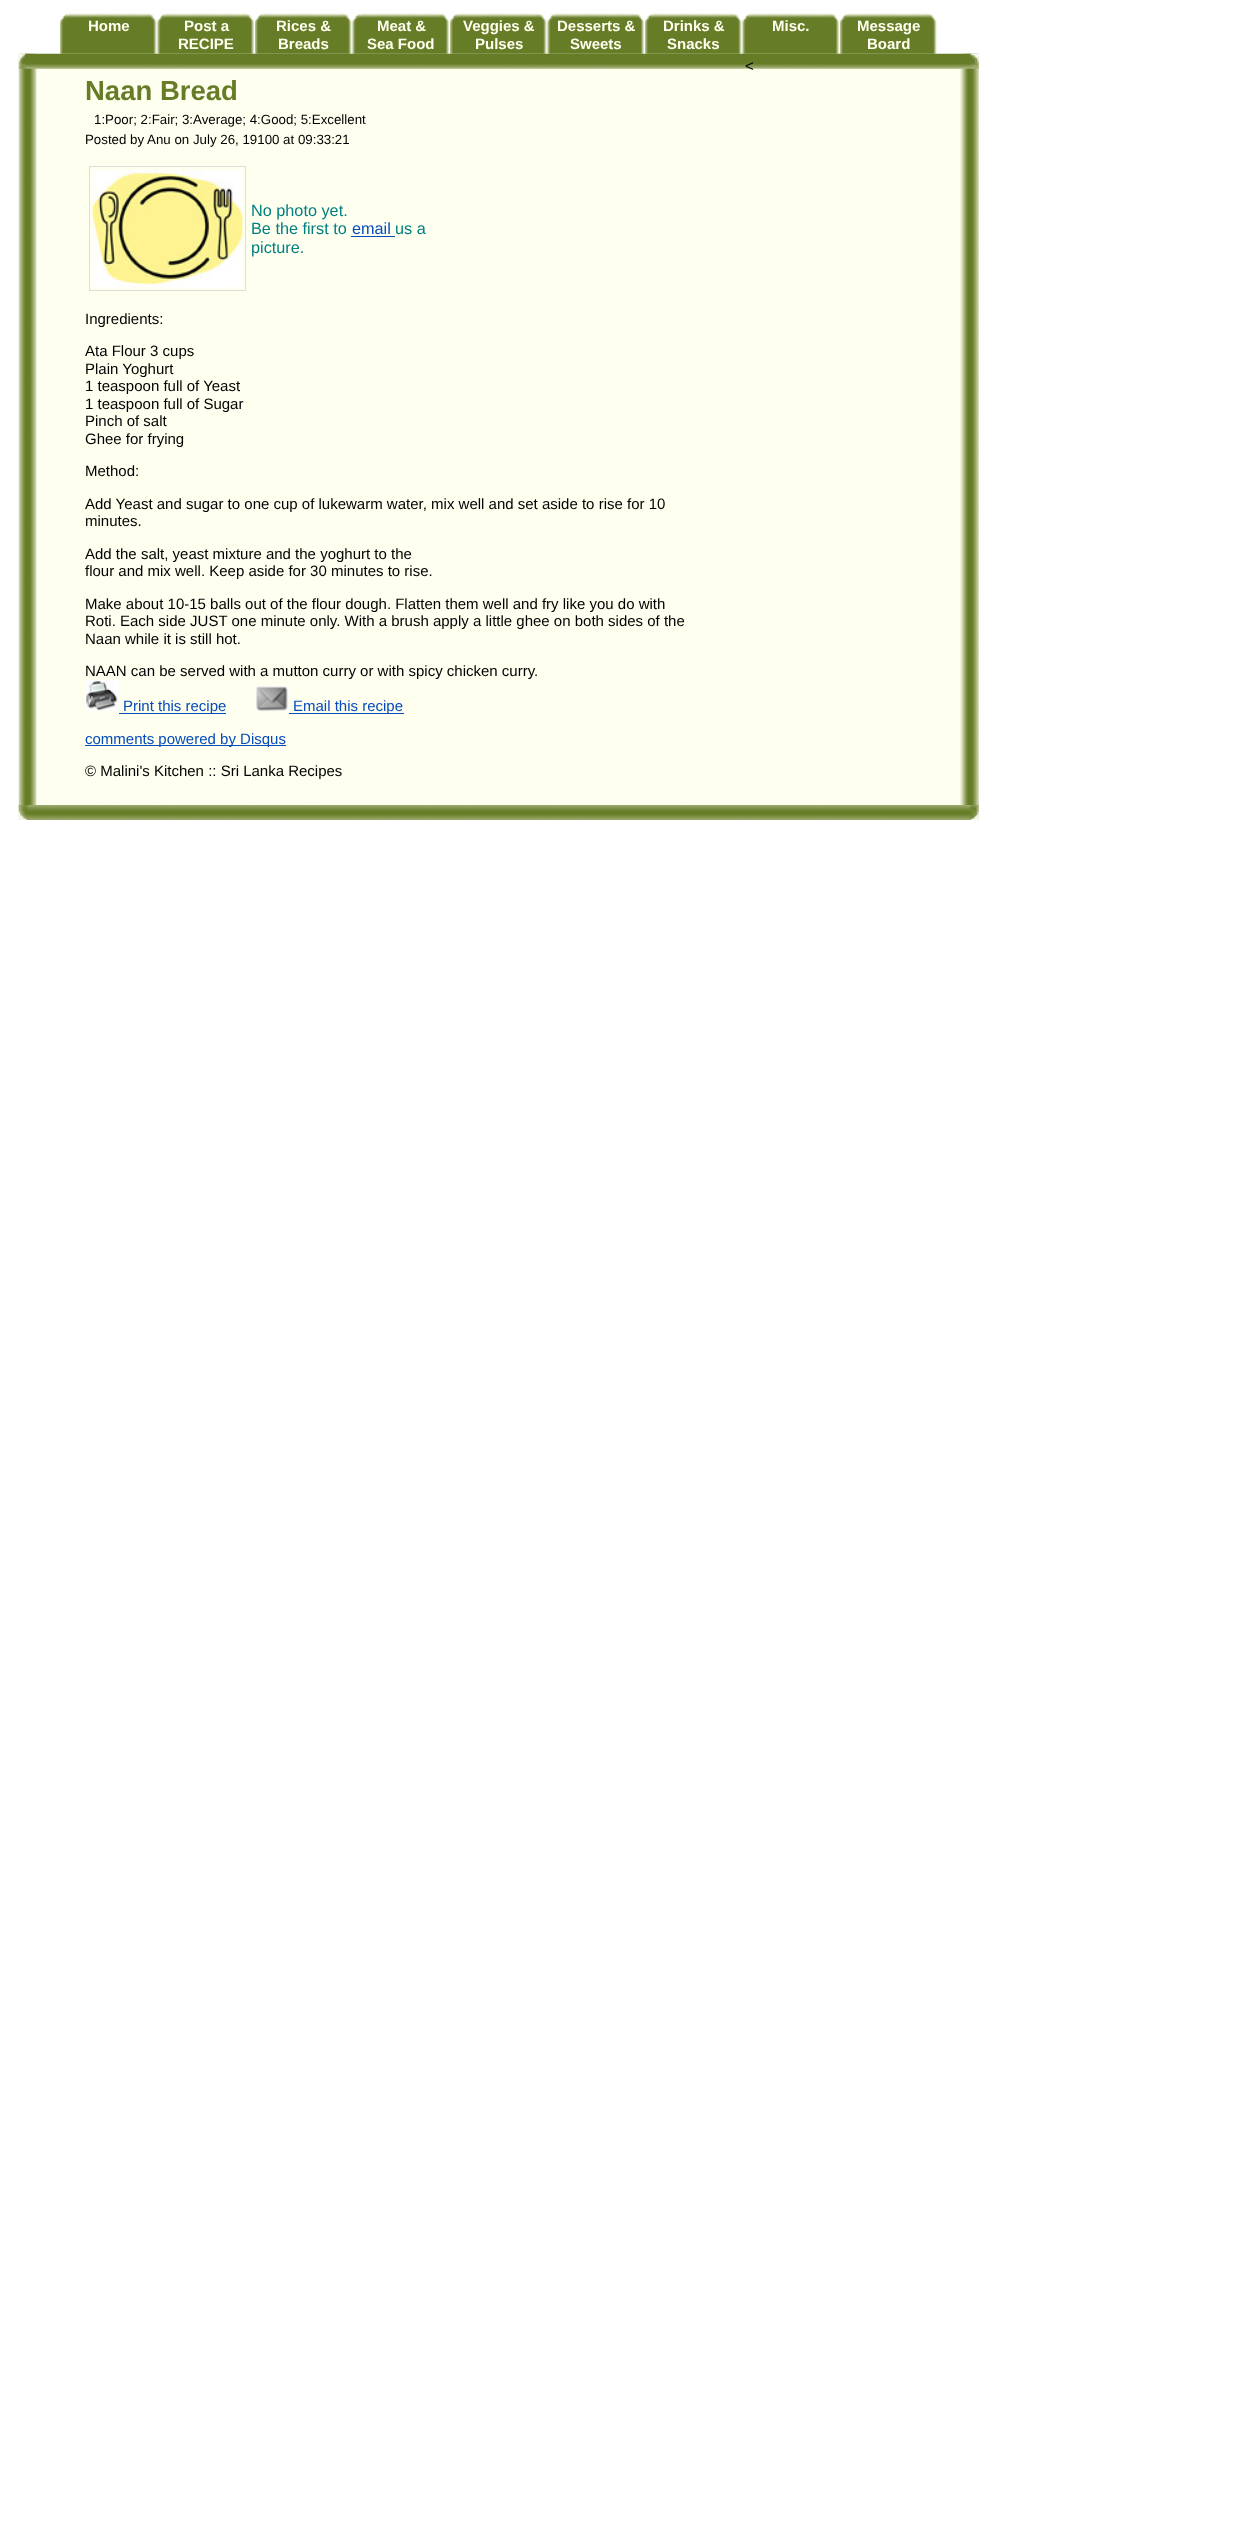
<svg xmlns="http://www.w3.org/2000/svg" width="1249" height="2535">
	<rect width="100%" height="100%" fill="#FFFFFF" />
	<image x="18" y="53" width="961" height="767" href="assets/img6.png" />
	<image x="60" y="13" width="97" height="41" href="assets/img1.png" />
	<text x="88" y="31" font-family="Liberation Sans" font-size="15" font-weight="700" fill="#FFFFF0">Home</text>
	<image x="157" y="13" width="97" height="41" href="assets/img2.png" />
	<g font-family="Liberation Sans" font-size="15" font-weight="700" fill="#FFFFF0">
		<text x="184" y="31">Post a</text>
		<text x="178" y="49">RECIPE</text>
	</g>
	<image x="255" y="13" width="97" height="41" href="assets/img1.png" />
	<g font-family="Liberation Sans" font-size="15" font-weight="700" fill="#FFFFF0">
		<text x="276" y="31">Rices &amp;</text>
		<text x="278" y="49">Breads</text>
	</g>
	<image x="352" y="13" width="97" height="41" href="assets/img3.png" />
	<g font-family="Liberation Sans" font-size="15" font-weight="700" fill="#FFFFF0">
		<text x="377" y="31">Meat &amp;</text>
		<text x="367" y="49">Sea Food</text>
	</g>
	<image x="450" y="13" width="97" height="41" href="assets/img4.png" />
	<g font-family="Liberation Sans" font-size="15" font-weight="700" fill="#FFFFF0">
		<text x="463" y="31">Veggies &amp;</text>
		<text x="475" y="49">Pulses</text>
	</g>
	<image x="547" y="13" width="97" height="41" href="assets/img2.png" />
	<g font-family="Liberation Sans" font-size="15" font-weight="700" fill="#FFFFF0">
		<text x="557" y="31">Desserts &amp;</text>
		<text x="570" y="49">Sweets</text>
	</g>
	<image x="645" y="13" width="97" height="41" href="assets/img1.png" />
	<g font-family="Liberation Sans" font-size="15" font-weight="700" fill="#FFFFF0">
		<text x="663" y="31">Drinks &amp;</text>
		<text x="667" y="49">Snacks</text>
	</g>
	<image x="742" y="13" width="97" height="41" href="assets/img2.png" />
	<text x="772" y="31" font-family="Liberation Sans" font-size="15" font-weight="700" fill="#FFFFF0">Misc.</text>
	<image x="840" y="13" width="97" height="41" href="assets/img5.png" />
	<g font-family="Liberation Sans" font-size="15" font-weight="700" fill="#FFFFF0">
		<text x="857" y="31">Message</text>
		<text x="867" y="49">Board</text>
	</g>
	<image x="18" y="53" width="961" height="16" href="assets/img7.png" />
	<image x="18" y="805" width="961" height="15" href="assets/img8.png" />
	<text x="745" y="71" font-family="Liberation Sans" font-size="15" fill="#000000">&lt;</text>
	<text x="85" y="100" font-family="Liberation Sans" font-size="27.5" font-weight="700" fill="#667C26">Naan Bread</text>
	<g font-family="Liberation Sans" font-size="13.3" fill="#000000">
		<text x="94" y="124">1:Poor; 2:Fair; 3:Average; 4:Good; 5:Excellent</text>
		<text x="85" y="144">Posted by Anu on July 26, 19100 at 09:33:21</text>
	</g>
	<rect x="89.5" y="166.5" width="156" height="124" fill="none" stroke="#DDDDDD" />
	<image x="92" y="170" width="151" height="118" href="assets/img9.png" />
	<g font-family="Liberation Sans" font-size="16.25" fill="#008080">
		<text x="251" y="216">No photo yet.</text>
		<text x="251" y="234">Be the first to</text>
	</g>
	<text x="352" y="234" font-family="Liberation Sans" font-size="16.25" fill="#054BBB">email</text>
	<text x="395" y="234" font-family="Liberation Sans" font-size="16.25" fill="#008080">us a</text>
	<rect x="351" y="236" width="44" height="1" fill="#054BBB" />
	<text x="251" y="253" font-family="Liberation Sans" font-size="16.25" fill="#008080">picture.</text>
	<g font-family="Liberation Sans" font-size="15" fill="#000000">
		<text x="85" y="324">Ingredients:</text>
		<text x="85" y="356">Ata Flour 3 cups</text>
		<text x="85" y="374">Plain Yoghurt</text>
		<text x="85" y="391">1 teaspoon full of Yeast</text>
		<text x="85" y="409">1 teaspoon full of Sugar</text>
		<text x="85" y="426">Pinch of salt</text>
		<text x="85" y="444">Ghee for frying</text>
		<text x="85" y="476">Method:</text>
		<text x="85" y="509">Add Yeast and sugar to one cup of lukewarm water, mix well and set aside to rise for 10</text>
		<text x="85" y="526">minutes.</text>
		<text x="85" y="559">Add the salt, yeast mixture and the yoghurt to the</text>
		<text x="85" y="576">flour and mix well. Keep aside for 30 minutes to rise.</text>
		<text x="85" y="609">Make about 10-15 balls out of the flour dough. Flatten them well and fry like you do with</text>
		<text x="85" y="626">Roti. Each side JUST one minute only. With a brush apply a little ghee on both sides of the</text>
		<text x="85" y="644">Naan while it is still hot.</text>
		<text x="85" y="676">NAAN can be served with a mutton curry or with spicy chicken curry.</text>
	</g>
	<image x="85" y="680" width="34" height="31" href="assets/img10.png" />
	<rect x="119" y="713" width="107" height="1" fill="#054BBB" />
	<text x="123" y="711" font-family="Liberation Sans" font-size="15" fill="#054BBB">Print this recipe</text>
	<image x="255" y="686" width="34" height="26" href="assets/img11.png" />
	<rect x="289" y="713" width="115" height="1" fill="#054BBB" />
	<text x="293" y="711" font-family="Liberation Sans" font-size="15" fill="#054BBB">Email this recipe</text>
	<rect x="85" y="745" width="201" height="1" fill="#054BBB" />
	<text x="85" y="744" font-family="Liberation Sans" font-size="15" fill="#054BBB">comments powered by Disqus</text>
	<text x="85" y="776" font-family="Liberation Sans" font-size="15" fill="#000000">© Malini's Kitchen :: Sri Lanka Recipes</text>
</svg>
